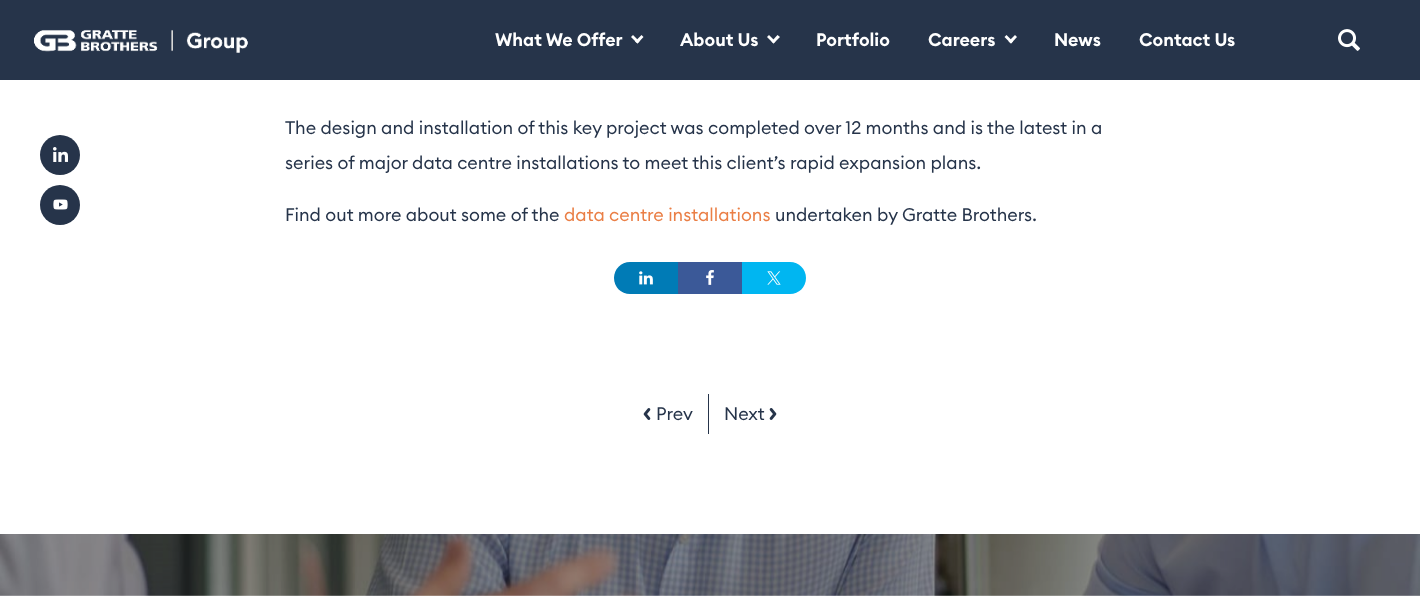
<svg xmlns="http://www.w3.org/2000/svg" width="1420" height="596">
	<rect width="100%" height="100%" fill="#FFFFFF" />
	<rect x="0" y="0" width="1420" height="80" fill="#26344A" />
	<image x="34" y="29" width="214" height="24" href="assets/img1.png" />
	<text x="495" y="46" font-family="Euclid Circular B" font-size="18" font-weight="600" fill="#FFFFFF">What We Offer</text>
	<path d="M641.5 35L643.5 37L637.5 43.5L635 41.5Z" fill="#FFFFFF" />
	<path d="M633 35L639.5 41.5L637.5 43.5L631 37Z" fill="#FFFFFF" />
	<text x="680" y="46" font-family="Euclid Circular B" font-size="18" font-weight="600" fill="#FFFFFF">About Us</text>
	<path d="M777.5 35L780 37L773.5 43.5L771.5 41.5Z" fill="#FFFFFF" />
	<path d="M769 35L775.5 41.5L773.5 43.5L767 37Z" fill="#FFFFFF" />
	<g font-family="Euclid Circular B" font-size="18" font-weight="600" fill="#FFFFFF">
		<text x="816" y="46">Portfolio</text>
		<text x="928" y="46">Careers</text>
	</g>
	<path d="M1015 35L1017 37L1011 43.5L1008.5 41.5Z" fill="#FFFFFF" />
	<path d="M1006.5 35L1013 41.5L1011 43.5L1004.5 37Z" fill="#FFFFFF" />
	<g font-family="Euclid Circular B" font-size="18" font-weight="600" fill="#FFFFFF">
		<text x="1054" y="46">News</text>
		<text x="1139" y="46">Contact Us</text>
	</g>
	<image x="1338" y="29" width="22" height="22" href="assets/img2.png" />
	<circle cx="60" cy="155" r="20" fill="#26344A" />
	<image x="53" y="147" width="15" height="15" href="assets/img3.png" />
	<circle cx="60" cy="205" r="20" fill="#26344A" />
	<image x="53" y="199" width="15" height="11" href="assets/img4.png" />
	<g font-family="Euclid Circular B" font-size="18" fill="#26344A">
		<text x="285" y="134">The design and installation of this key project was completed over 12 months and is the latest in a</text>
		<text x="285" y="169">series of major data centre installations to meet this client’s rapid expansion plans.</text>
		<text x="285" y="221">Find out more about some of the</text>
	</g>
	<text x="564" y="221" font-family="Euclid Circular B" font-size="18" fill="#EA7F46">data centre installations</text>
	<text x="775" y="221" font-family="Euclid Circular B" font-size="18" fill="#26344A">undertaken by Gratte Brothers.</text>
	<path d="M630 262H678V294H630C621 294 614 287 614 278C614 269 621 262 630 262Z" fill="#007BB6" />
	<image x="639" y="271" width="14" height="14" href="assets/img5.png" />
	<rect x="678" y="262" width="64" height="32" fill="#3B5998" />
	<image x="706" y="270" width="8" height="15" href="assets/img6.png" />
	<path d="M742 262H790C799 262 806 269 806 278C806 287 799 294 790 294H742Z" fill="#00B6F1" />
	<image x="767" y="271" width="14" height="14" href="assets/img7.png" />
	<image x="643" y="408" width="8" height="12" href="assets/img8.png" />
	<text x="656" y="420" font-family="Euclid Circular B" font-size="18" fill="#26344A">Prev</text>
	<rect x="708" y="394" width="1" height="40" fill="#26344A" />
	<text x="724" y="420" font-family="Euclid Circular B" font-size="18" fill="#26344A">Next</text>
	<image x="769" y="408" width="8" height="12" href="assets/img9.png" />
	<image x="0" y="534" width="1420" height="62" href="assets/img10.png" />
</svg>
